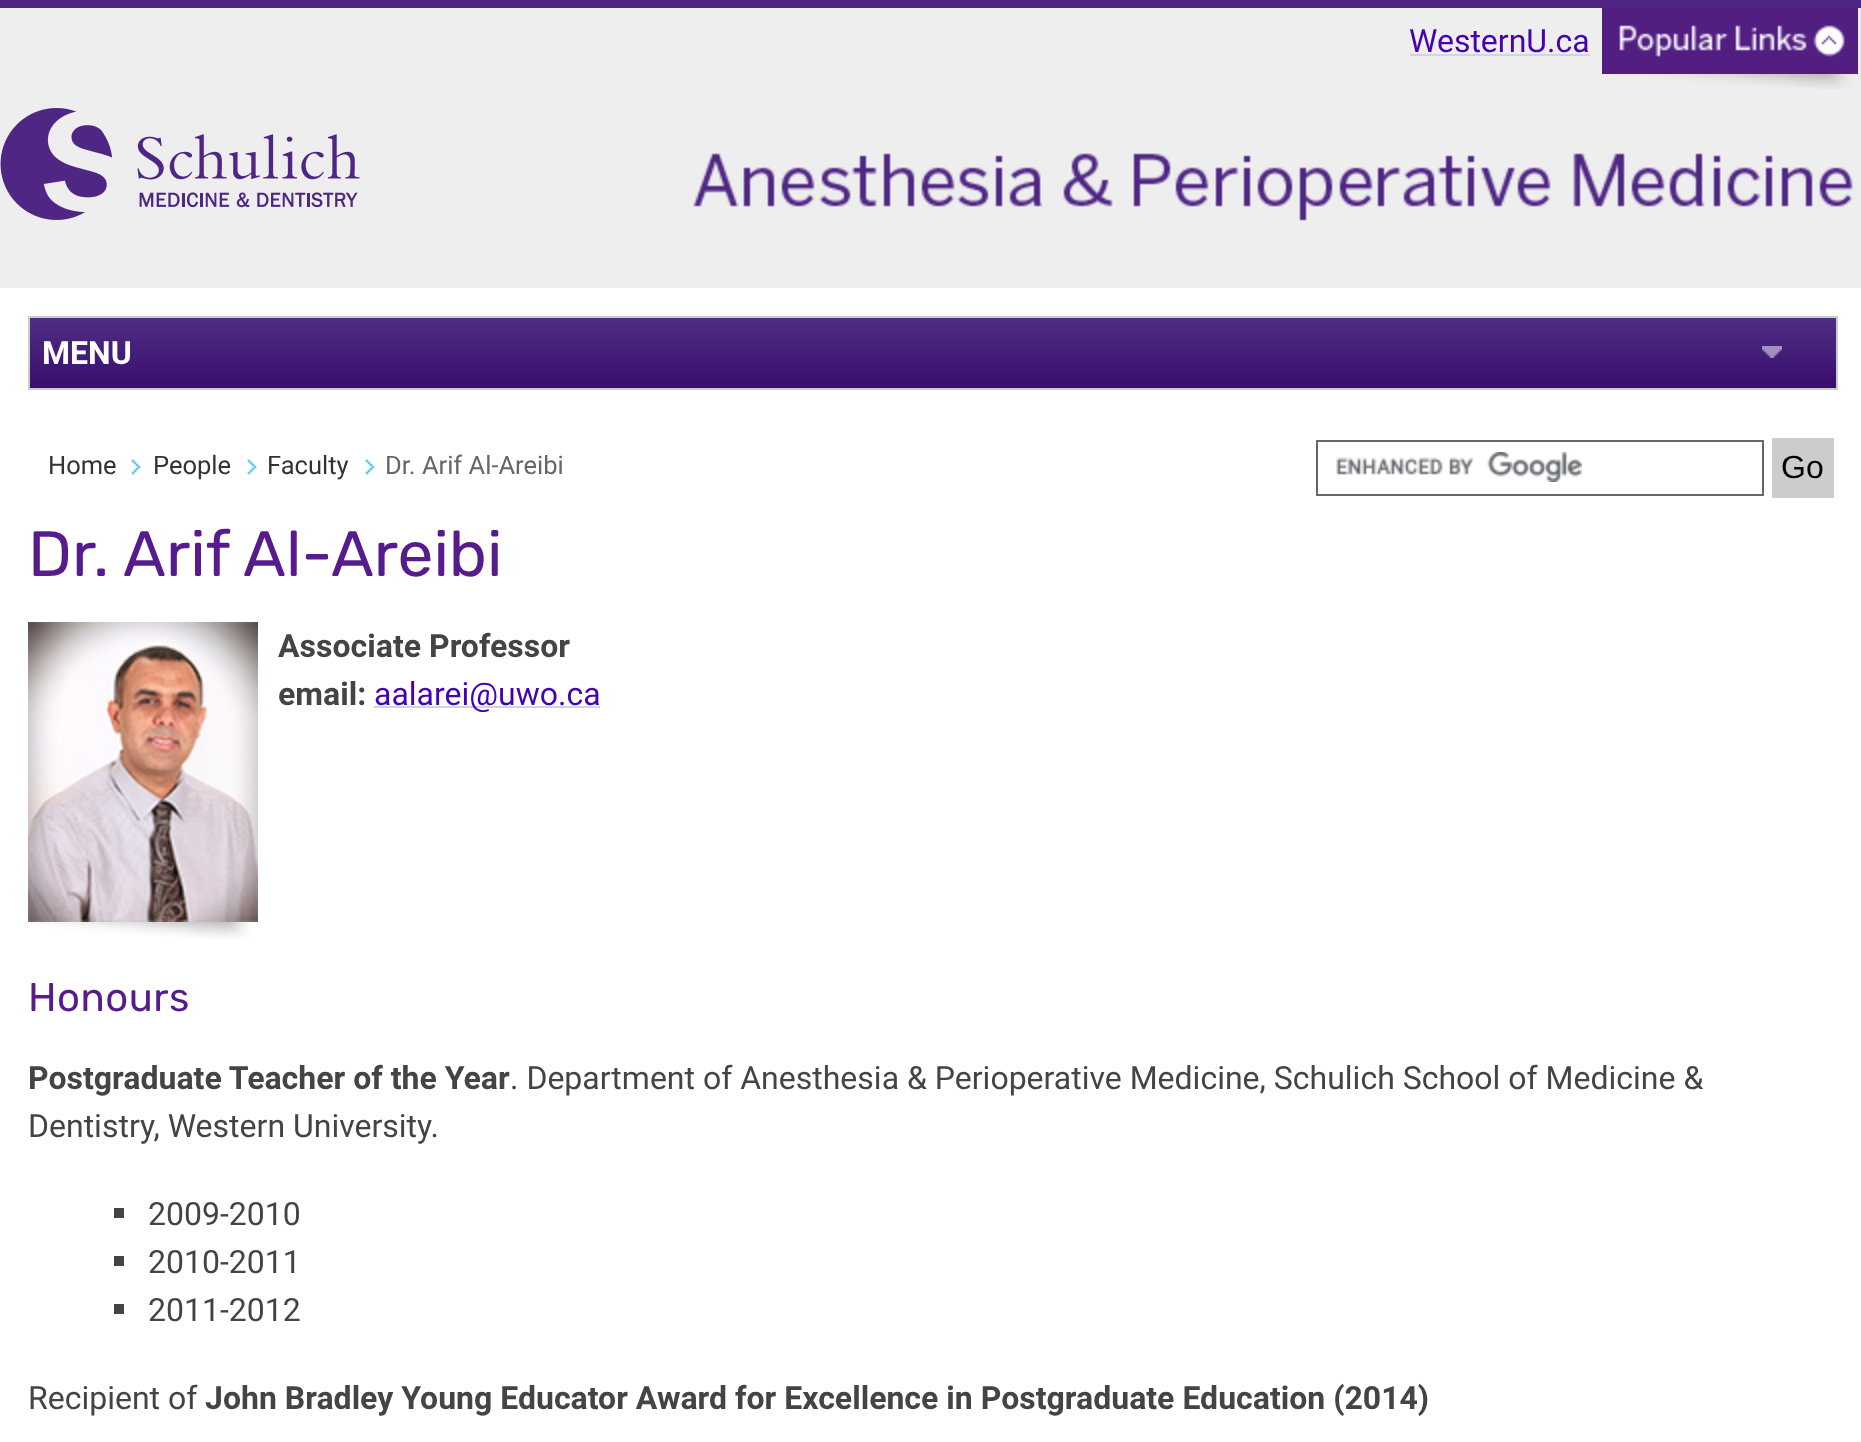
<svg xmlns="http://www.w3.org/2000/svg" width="1861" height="1442">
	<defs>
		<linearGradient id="g1" gradientUnits="userSpaceOnUse" x1="30" y1="318" x2="30" y2="388"><stop offset="0" stop-color="#4F2E84" /><stop offset="1" stop-color="#380E6E" /></linearGradient>
	</defs>
	<rect width="100%" height="100%" fill="#EEEEEE" />
	<rect x="0" y="0" width="1861" height="8" fill="#4E2583" />
	<text x="1409" y="52" font-family="Roboto" font-size="32" fill="#4502B1">WesternU.ca</text>
	<rect x="1410" y="54" width="180" height="2" fill="#CFD6E2" />
	<image x="1602" y="8" width="256" height="81" href="assets/img1.png" />
	<image x="0" y="108" width="360" height="112" href="assets/img2.png" />
	<image x="693" y="153" width="1160" height="68" href="assets/img3.png" />
	<rect x="0" y="288" width="1861" height="1154" fill="#FFFFFF" />
	<rect x="30" y="318" width="1806" height="70" fill="url(#g1)" />
	<rect x="29" y="317" width="1808" height="72" fill="none" stroke="#CCCCCC" stroke-width="2" />
	<image x="1762" y="346" width="20" height="12" href="assets/img4.png" />
	<text x="42" y="364" font-family="Roboto" font-size="32" font-weight="700" fill="#FFFFFF">MENU</text>
	<image x="131" y="459" width="10" height="16" href="assets/img5.png" />
	<text x="48" y="474" font-family="Roboto" font-size="25.5" fill="#333333">Home</text>
	<image x="247" y="459" width="10" height="16" href="assets/img5.png" />
	<text x="153" y="474" font-family="Roboto" font-size="25.5" fill="#333333">People</text>
	<image x="365" y="459" width="10" height="16" href="assets/img5.png" />
	<text x="267" y="474" font-family="Roboto" font-size="25.5" fill="#333333">Faculty</text>
	<text x="385" y="474" font-family="Roboto" font-size="25.5" fill="#666666">Dr. Arif Al-Areibi</text>
	<image x="1336" y="452" width="246" height="30" href="assets/img6.png" />
	<rect x="1317" y="441" width="446" height="54" fill="none" stroke="#666666" stroke-width="2" />
	<rect x="1772" y="438" width="62" height="60" fill="#CCCCCC" />
	<text x="1781" y="478" font-family="Liberation Sans" font-size="32" fill="#000000">Go</text>
	<text x="28" y="576" font-family="Rubik" font-size="64" fill="#561B8D">Dr. Arif Al-Areibi</text>
	<image x="28" y="622" width="230" height="317" href="assets/img7.png" />
	<g font-family="Roboto" font-size="32" font-weight="700" fill="#444444">
		<text x="278" y="657">Associate Professor</text>
		<text x="278" y="705">email:</text>
	</g>
	<rect x="374" y="706" width="226" height="2" fill="#CFD6E2" />
	<text x="374" y="705" font-family="Roboto" font-size="32" fill="#4502B1">aalarei@uwo.ca</text>
	<text x="28" y="1011" font-family="Rubik" font-size="40" letter-spacing="0.5" fill="#561B8D">Honours</text>
	<text x="28" y="1089" font-family="Roboto" font-size="32" font-weight="700" fill="#444444">Postgraduate Teacher of the Year</text>
	<g font-family="Roboto" font-size="32" fill="#444444">
		<text x="510" y="1089">. Department of Anesthesia &amp; Perioperative Medicine, Schulich School of Medicine &amp;</text>
		<text x="28" y="1137">Dentistry, Western University.</text>
	</g>
	<rect x="114" y="1208" width="10" height="10" fill="#444444" />
	<text x="148" y="1225" font-family="Roboto" font-size="32" fill="#444444">2009-2010</text>
	<rect x="114" y="1256" width="10" height="10" fill="#444444" />
	<text x="148" y="1273" font-family="Roboto" font-size="32" fill="#444444">2010-2011</text>
	<rect x="114" y="1304" width="10" height="10" fill="#444444" />
	<g font-family="Roboto" font-size="32" fill="#444444">
		<text x="148" y="1321">2011-2012</text>
		<text x="28" y="1409">Recipient of</text>
	</g>
	<text x="205" y="1409" font-family="Roboto" font-size="32" font-weight="700" fill="#444444">John Bradley Young Educator Award for Excellence in Postgraduate Education (2014)</text>
</svg>
